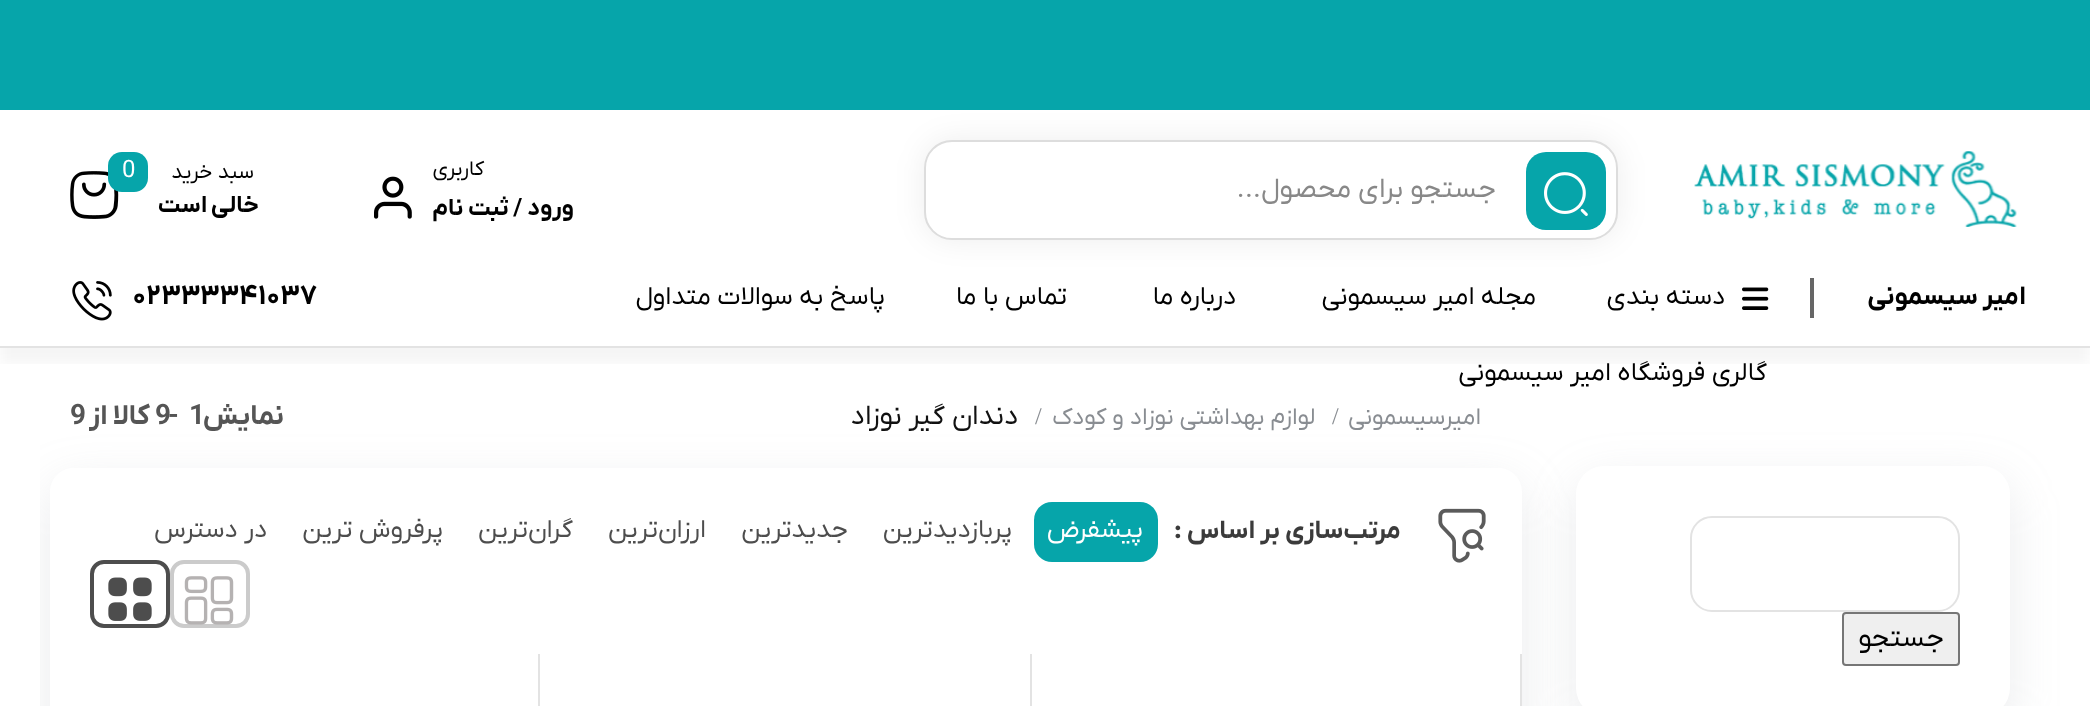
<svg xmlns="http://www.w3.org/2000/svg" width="2090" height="706">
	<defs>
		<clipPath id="clip1"><rect x="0" y="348" width="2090" height="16" /></clipPath>
		<clipPath id="clip2"><rect x="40" y="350" width="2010" height="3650" /></clipPath>
		<clipPath id="clip3"><path d="M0 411H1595V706H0ZM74 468H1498C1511.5 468 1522 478.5 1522 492V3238C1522 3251.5 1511.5 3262 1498 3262H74C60.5 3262 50 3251.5 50 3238V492C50 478.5 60.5 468 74 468Z" clip-rule="evenodd" /></clipPath>
	</defs>
	<rect width="100%" height="100%" fill="#FFFFFF" />
	<rect x="0" y="0" width="2090" height="110" fill="#06A5AA" />
	<image x="1694" y="151" width="323" height="76" href="assets/img1.png" />
	<rect x="924" y="140" width="694" height="100" rx="28" fill="#000000" fill-opacity="0.07" filter="blur(15px)" />
	<rect x="925" y="141" width="692" height="98" rx="27" fill="#FFFFFF" stroke="#DDDDDD" stroke-width="2" />
	<rect x="1526" y="152" width="80" height="78" rx="20" fill="#06A5AA" />
	<image x="1544" y="172" width="44" height="44" href="assets/img2.png" />
	<text x="1496" y="197" font-family="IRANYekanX" font-size="28" direction="rtl" fill="#888888">جستجو برای محصول...</text>
	<text x="484" y="175" font-family="IRANYekanX" font-size="21" direction="rtl" fill="#000000">کاربری</text>
	<text x="574" y="215" font-family="IRANYekanX" font-size="24" font-weight="700" direction="rtl" fill="#000000">ورود / ثبت نام</text>
	<image x="374" y="176" width="38" height="43" href="assets/img3.png" />
	<text x="254" y="178" font-family="IRANYekanX" font-size="21" direction="rtl" fill="#000000">سبد خرید</text>
	<text x="259" y="212" word-spacing="-1" font-family="IRANYekanX" font-size="24" font-weight="700" letter-spacing="1" direction="rtl" fill="#000000">خالی است</text>
	<image x="70" y="171" width="49" height="48" href="assets/img4.png" />
	<rect x="108" y="152" width="40" height="40" rx="14" fill="#06A5AA" />
	<text x="122" y="177" font-family="IRANYekanX" font-size="24" fill="#FFFFFF">0</text>
	<g clip-path="url(#clip1)">
		<rect x="0" y="272" width="2090" height="92" fill="#000000" fill-opacity="0.04" filter="blur(7px)" />
	</g>
	<rect x="0" y="346" width="2090" height="2" fill="#E3E3E3" />
	<text x="2026" y="304" font-family="IRANYekanX" font-size="26" font-weight="700" direction="rtl" fill="#000000">امیر سیسمونی</text>
	<rect x="1810" y="278" width="4" height="40" fill="#666666" />
	<image x="1742" y="287" width="27" height="23" href="assets/img5.png" />
	<g font-family="IRANYekanX" font-size="26" direction="rtl" fill="#000000">
		<text x="1725" y="304">دسته بندی</text>
		<text x="1536" y="304">مجله امیر سیسمونی</text>
		<text x="1236" y="304">درباره ما</text>
		<text x="1067" y="304">تماس با ما</text>
		<text x="885" y="304">پاسخ به سوالات متداول</text>
		<text x="1767" y="380">گالری فروشگاه امیر سیسمونی</text>
	</g>
	<text x="132" y="304" font-family="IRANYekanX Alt" font-size="28" font-weight="700" fill="#000000">02333341037</text>
	<image x="72" y="281" width="40" height="40" href="assets/img6.png" />
	<text x="1481" y="424" font-family="IRANYekanX" font-size="24" direction="rtl" fill="#898D92">امیرسیسمونی</text>
	<text x="1332" y="424" font-family="Liberation Serif" font-size="24" fill="#898D92">/</text>
	<text x="1315" y="424" font-family="IRANYekanX" font-size="24" direction="rtl" fill="#898D92">لوازم بهداشتی نوزاد و کودک</text>
	<text x="1035" y="424" font-family="Liberation Serif" font-size="24" fill="#898D92">/</text>
	<text x="1018" y="424" font-family="IRANYekanX" font-size="28" direction="rtl" fill="#111111">دندان گیر نوزاد</text>
	<text x="284" y="424" font-family="IRANYekanX" font-size="28" font-weight="700" direction="rtl" fill="#555555">نمایش</text>
	<g font-family="IRANYekanX" font-size="28" font-weight="700" fill="#555555">
		<text x="189" y="424">1</text>
		<text x="168" y="424">-</text>
		<text x="155" y="424">9</text>
	</g>
	<text x="150" y="424" font-family="IRANYekanX" font-size="28" font-weight="700" direction="rtl" fill="#555555">کالا از</text>
	<text x="70" y="424" font-family="IRANYekanX" font-size="28" font-weight="700" fill="#555555">9</text>
	<rect x="1576" y="482" width="434" height="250" rx="28" fill="#959DA5" fill-opacity="0.2" filter="blur(24px)" />
	<rect x="1576" y="466" width="434" height="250" rx="28" fill="#FFFFFF" />
	<g clip-path="url(#clip2)">
		<g clip-path="url(#clip3)">
			<rect x="50" y="484" width="1472" height="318" rx="24" fill="#959DA5" fill-opacity="0.2" filter="blur(24px)" />
		</g>
	</g>
	<image x="1438" y="508" width="48" height="55" href="assets/img7.png" />
	<text x="1401" y="538" font-family="IRANYekanX" font-size="26" font-weight="700" direction="rtl" fill="#3B3B3B">مرتب‌سازی بر اساس :</text>
	<rect x="1034" y="502" width="124" height="60" rx="18" fill="#06A5AA" />
	<text x="1143" y="537" font-family="IRANYekanX" font-size="26" direction="rtl" fill="#FFFFFF">پیشفرض</text>
	<g font-family="IRANYekanX" font-size="26" direction="rtl" fill="#4D4D4D">
		<text x="1012" y="537">پربازدیدترین</text>
		<text x="848" y="537">جدیدترین</text>
		<text x="706" y="537">ارزان‌ترین</text>
		<text x="573" y="537">گران‌ترین</text>
		<text x="443" y="537">پرفروش ترین</text>
		<text x="267" y="537">در دسترس</text>
	</g>
	<rect x="172" y="562" width="76" height="64" rx="12" fill="none" stroke="#CBCBCB" stroke-width="4" />
	<image x="184" y="576" width="50" height="49" href="assets/img8.png" />
	<rect x="92" y="562" width="76" height="64" rx="12" fill="none" stroke="#4D4D4D" stroke-width="4" />
	<image x="108" y="577" width="44" height="44" href="assets/img9.png" />
	<rect x="1520" y="654" width="2" height="52" fill="#E3E3E3" />
	<rect x="1030" y="654" width="2" height="52" fill="#E3E3E3" />
	<rect x="538" y="654" width="2" height="52" fill="#E3E3E3" />
	<rect x="1691" y="517" width="268" height="94" rx="21" fill="none" stroke="#E3E3E3" stroke-width="2" />
	<rect x="1843" y="613" width="116" height="52" rx="3" fill="#EFEFEF" stroke="#767676" stroke-width="2" />
	<text x="1944" y="646" font-family="IRANYekanX" font-size="28" direction="rtl" fill="#000000">جستجو</text>
</svg>
